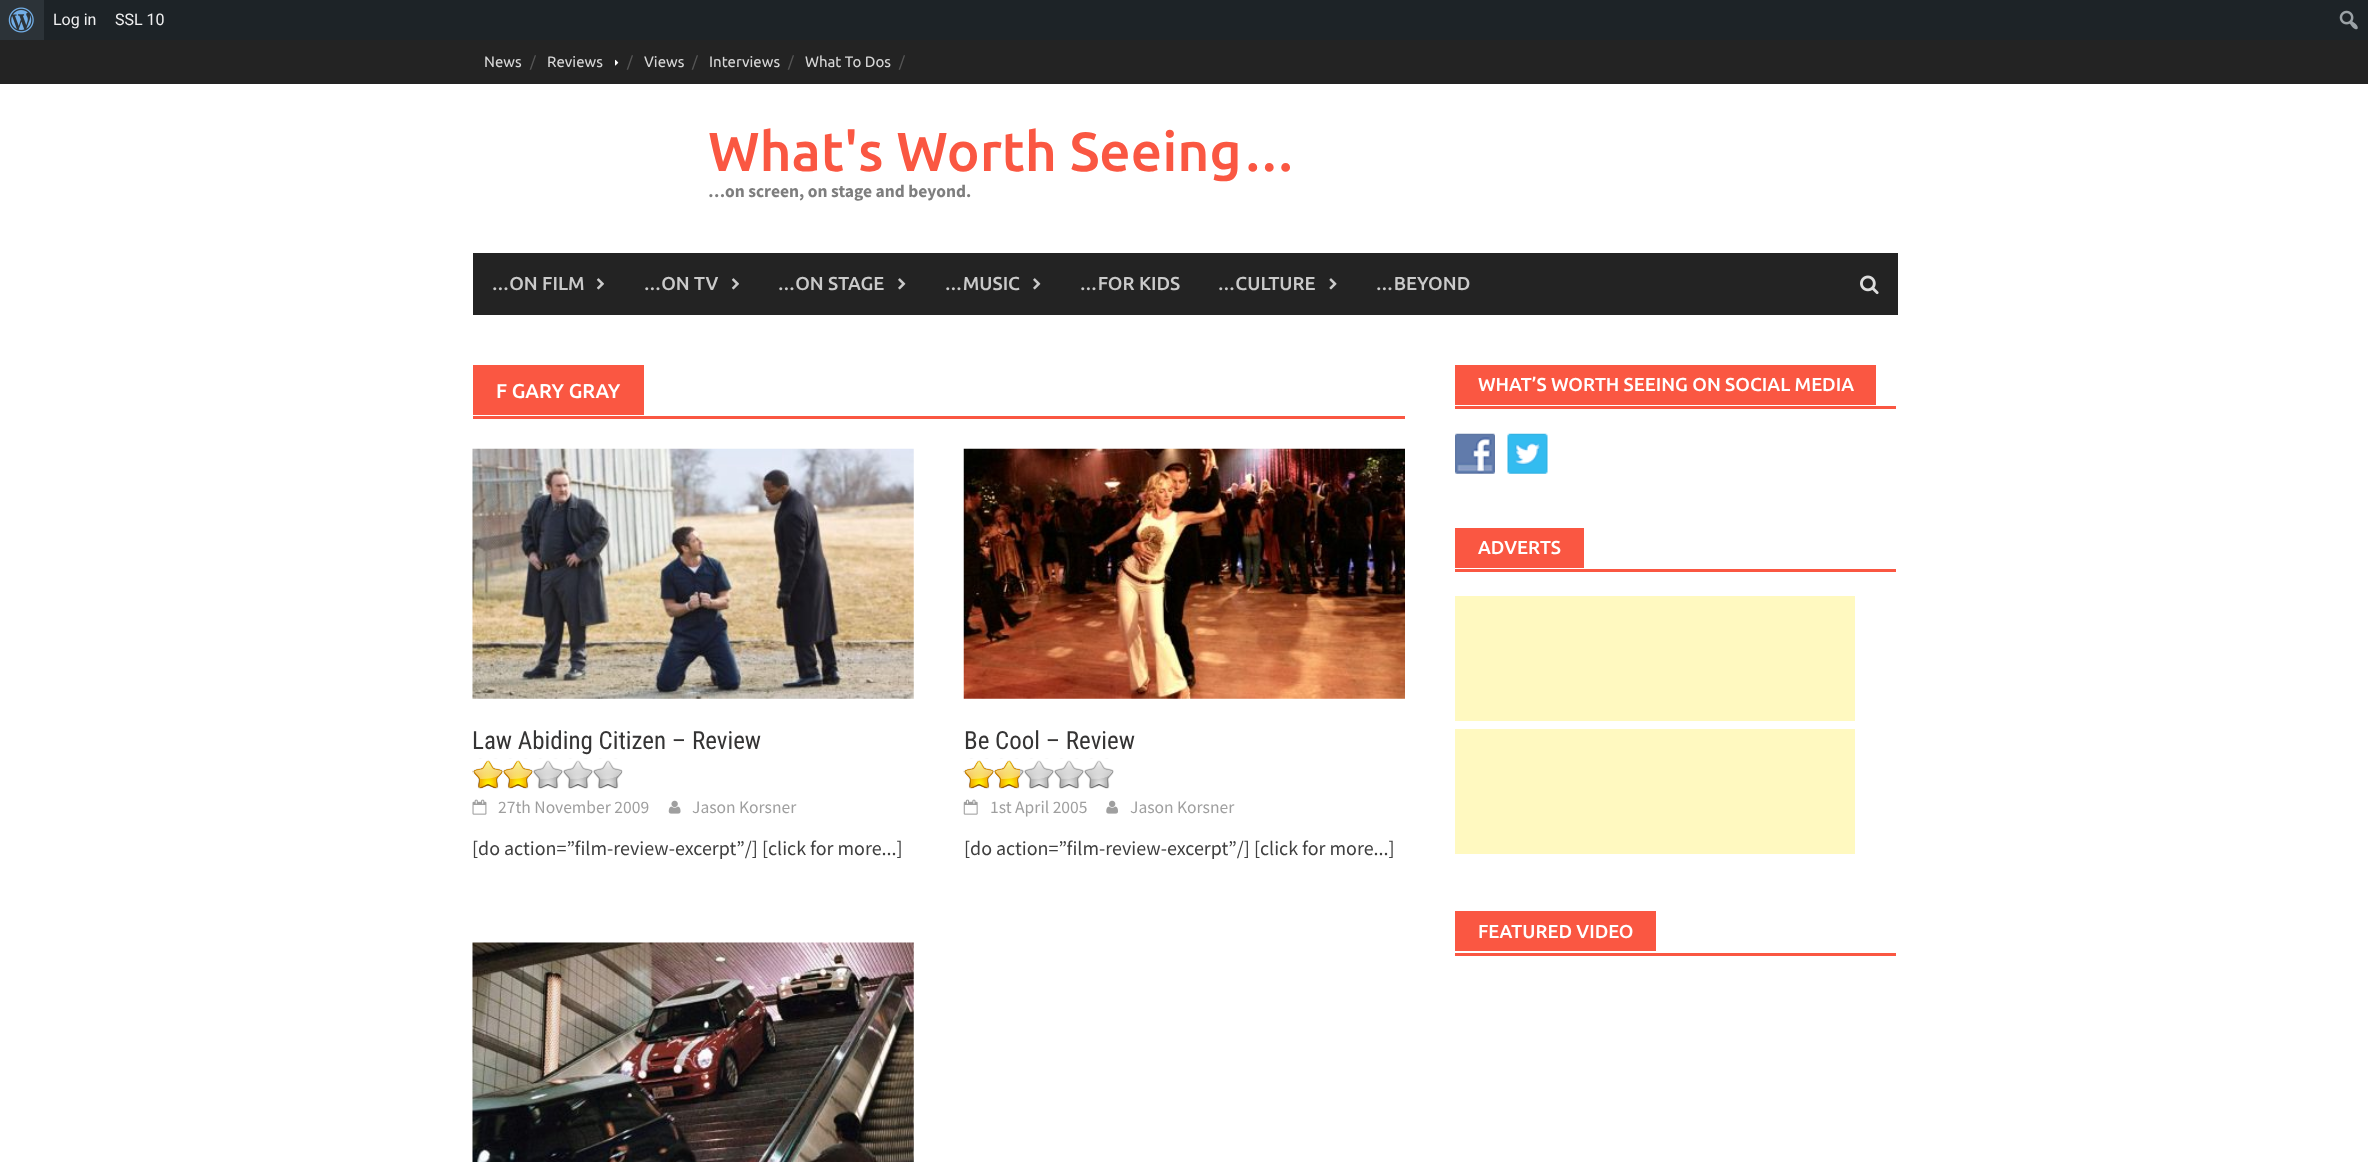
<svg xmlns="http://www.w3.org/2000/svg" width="2368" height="1162">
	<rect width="100%" height="100%" fill="#FFFFFF" />
	<rect x="44" y="0" width="2324" height="40" fill="#1D2327" />
	<rect x="0" y="0" width="44" height="40" fill="#2C3338" />
	<image x="8" y="7" width="26" height="26" href="assets/img1.png" />
	<g font-family="Roboto" font-size="16" fill="#F0F0F1">
		<text x="53" y="25">Log in</text>
		<text x="115" y="25">SSL 10</text>
	</g>
	<image x="2339" y="10" width="19" height="20" href="assets/img2.png" />
	<rect x="0" y="40" width="2368" height="44" fill="#232323" />
	<text x="484" y="67" font-family="Ubuntu" font-size="15" fill="#D7D7D7">News</text>
	<text x="530" y="67" font-family="Ubuntu" font-size="15" fill="#555555">/</text>
	<text x="547" y="67" font-family="Ubuntu" font-size="15" fill="#D7D7D7">Reviews</text>
	<image x="615" y="59" width="4" height="7" href="assets/img3.png" />
	<text x="627" y="67" font-family="Ubuntu" font-size="15" fill="#555555">/</text>
	<text x="644" y="67" font-family="Ubuntu" font-size="15" fill="#D7D7D7">Views</text>
	<text x="692" y="67" font-family="Ubuntu" font-size="15" fill="#555555">/</text>
	<text x="709" y="67" font-family="Ubuntu" font-size="15" fill="#D7D7D7">Interviews</text>
	<text x="788" y="67" font-family="Ubuntu" font-size="15" fill="#555555">/</text>
	<text x="805" y="67" font-family="Ubuntu" font-size="15" fill="#D7D7D7">What To Dos</text>
	<text x="899" y="67" font-family="Ubuntu" font-size="15" fill="#555555">/</text>
	<text x="708" y="171" font-family="Ubuntu" font-size="55" font-weight="500" fill="#FA5742">What's Worth Seeing…</text>
	<text x="708" y="197" font-family="Source Sans Pro" font-size="17.5" font-weight="700" fill="#7E7E7E">…on screen, on stage and beyond.</text>
	<rect x="473" y="253" width="1425" height="62" fill="#232323" />
	<text x="491" y="290" font-family="Ubuntu" font-size="18.75" font-weight="500" fill="#CACACA">…ON FILM</text>
	<image x="596" y="278" width="8" height="12" href="assets/img4.png" />
	<text x="643" y="290" font-family="Ubuntu" font-size="18.75" font-weight="500" fill="#CACACA">…ON TV</text>
	<image x="731" y="278" width="8" height="12" href="assets/img4.png" />
	<text x="777" y="290" font-family="Ubuntu" font-size="18.75" font-weight="500" fill="#CACACA">…ON STAGE</text>
	<image x="898" y="278" width="8" height="12" href="assets/img5.png" />
	<text x="944" y="290" font-family="Ubuntu" font-size="18.75" font-weight="500" fill="#CACACA">…MUSIC</text>
	<image x="1033" y="278" width="8" height="12" href="assets/img5.png" />
	<g font-family="Ubuntu" font-size="18.75" font-weight="500" fill="#CACACA">
		<text x="1079" y="290">…FOR KIDS</text>
		<text x="1217" y="290">…CULTURE</text>
	</g>
	<image x="1329" y="278" width="8" height="12" href="assets/img6.png" />
	<text x="1375" y="290" font-family="Ubuntu" font-size="18.75" font-weight="500" fill="#CACACA">…BEYOND</text>
	<image x="1860" y="275" width="19" height="20" href="assets/img7.png" />
	<rect x="473" y="416" width="932" height="3" fill="#FA5742" />
	<rect x="473" y="365" width="171" height="50" fill="#FA5742" />
	<text x="496" y="398" font-family="Ubuntu" font-size="20" font-weight="500" fill="#FFFFFF">F GARY GRAY</text>
	<image x="472" y="448" width="442" height="251" href="assets/img8.png" />
	<text x="472" y="749" font-family="Roboto Condensed" font-size="25" fill="#353434">Law Abiding Citizen – Review</text>
	<image x="472" y="758" width="151" height="31" href="assets/img9.png" />
	<image x="472" y="760" width="61" height="28" href="assets/img10.png" />
	<image x="472" y="799" width="15" height="16" href="assets/img11.png" />
	<text x="498" y="813" font-family="Source Sans Pro" font-size="17.5" fill="#9F9F9F">27th November 2009</text>
	<image x="668" y="800" width="13" height="14" href="assets/img12.png" />
	<text x="692" y="813" font-family="Source Sans Pro" font-size="17.5" fill="#9F9F9F">Jason Korsner</text>
	<text x="472" y="855" font-family="Source Sans Pro" font-size="20" fill="#404040">[do action=”film-review-excerpt”/] [click for more...]</text>
	<image x="963" y="448" width="442" height="251" href="assets/img13.png" />
	<text x="964" y="749" font-family="Roboto Condensed" font-size="25" fill="#353434">Be Cool – Review</text>
	<image x="963" y="758" width="151" height="31" href="assets/img14.png" />
	<image x="963" y="760" width="57" height="28" href="assets/img15.png" />
	<image x="963" y="799" width="15" height="16" href="assets/img16.png" />
	<text x="990" y="813" font-family="Source Sans Pro" font-size="17.5" fill="#9F9F9F">1st April 2005</text>
	<image x="1106" y="800" width="12" height="14" href="assets/img17.png" />
	<text x="1130" y="813" font-family="Source Sans Pro" font-size="17.5" fill="#9F9F9F">Jason Korsner</text>
	<text x="964" y="855" font-family="Source Sans Pro" font-size="20" fill="#404040">[do action=”film-review-excerpt”/] [click for more...]</text>
	<image x="472" y="942" width="442" height="220" href="assets/img18.png" />
	<rect x="1455" y="406" width="441" height="3" fill="#FA5742" />
	<rect x="1455" y="365" width="421" height="40" fill="#FA5742" />
	<text x="1478" y="391" font-family="Ubuntu" font-size="18.75" font-weight="500" fill="#FFFFFF">WHAT’S WORTH SEEING ON SOCIAL MEDIA</text>
	<image x="1455" y="433" width="40" height="41" href="assets/img19.png" />
	<image x="1507" y="433" width="41" height="41" href="assets/img20.png" />
	<rect x="1455" y="569" width="441" height="3" fill="#FA5742" />
	<rect x="1455" y="528" width="129" height="40" fill="#FA5742" />
	<text x="1478" y="554" font-family="Ubuntu" font-size="18.75" font-weight="500" fill="#FFFFFF">ADVERTS</text>
	<rect x="1455" y="596" width="400" height="125" fill="#FFF9C0" />
	<rect x="1455" y="729" width="400" height="125" fill="#FFF9C0" />
	<rect x="1455" y="953" width="441" height="3" fill="#FA5742" />
	<rect x="1455" y="911" width="201" height="40" fill="#FA5742" />
	<text x="1478" y="938" font-family="Ubuntu" font-size="18.75" font-weight="500" fill="#FFFFFF">FEATURED VIDEO</text>
</svg>
